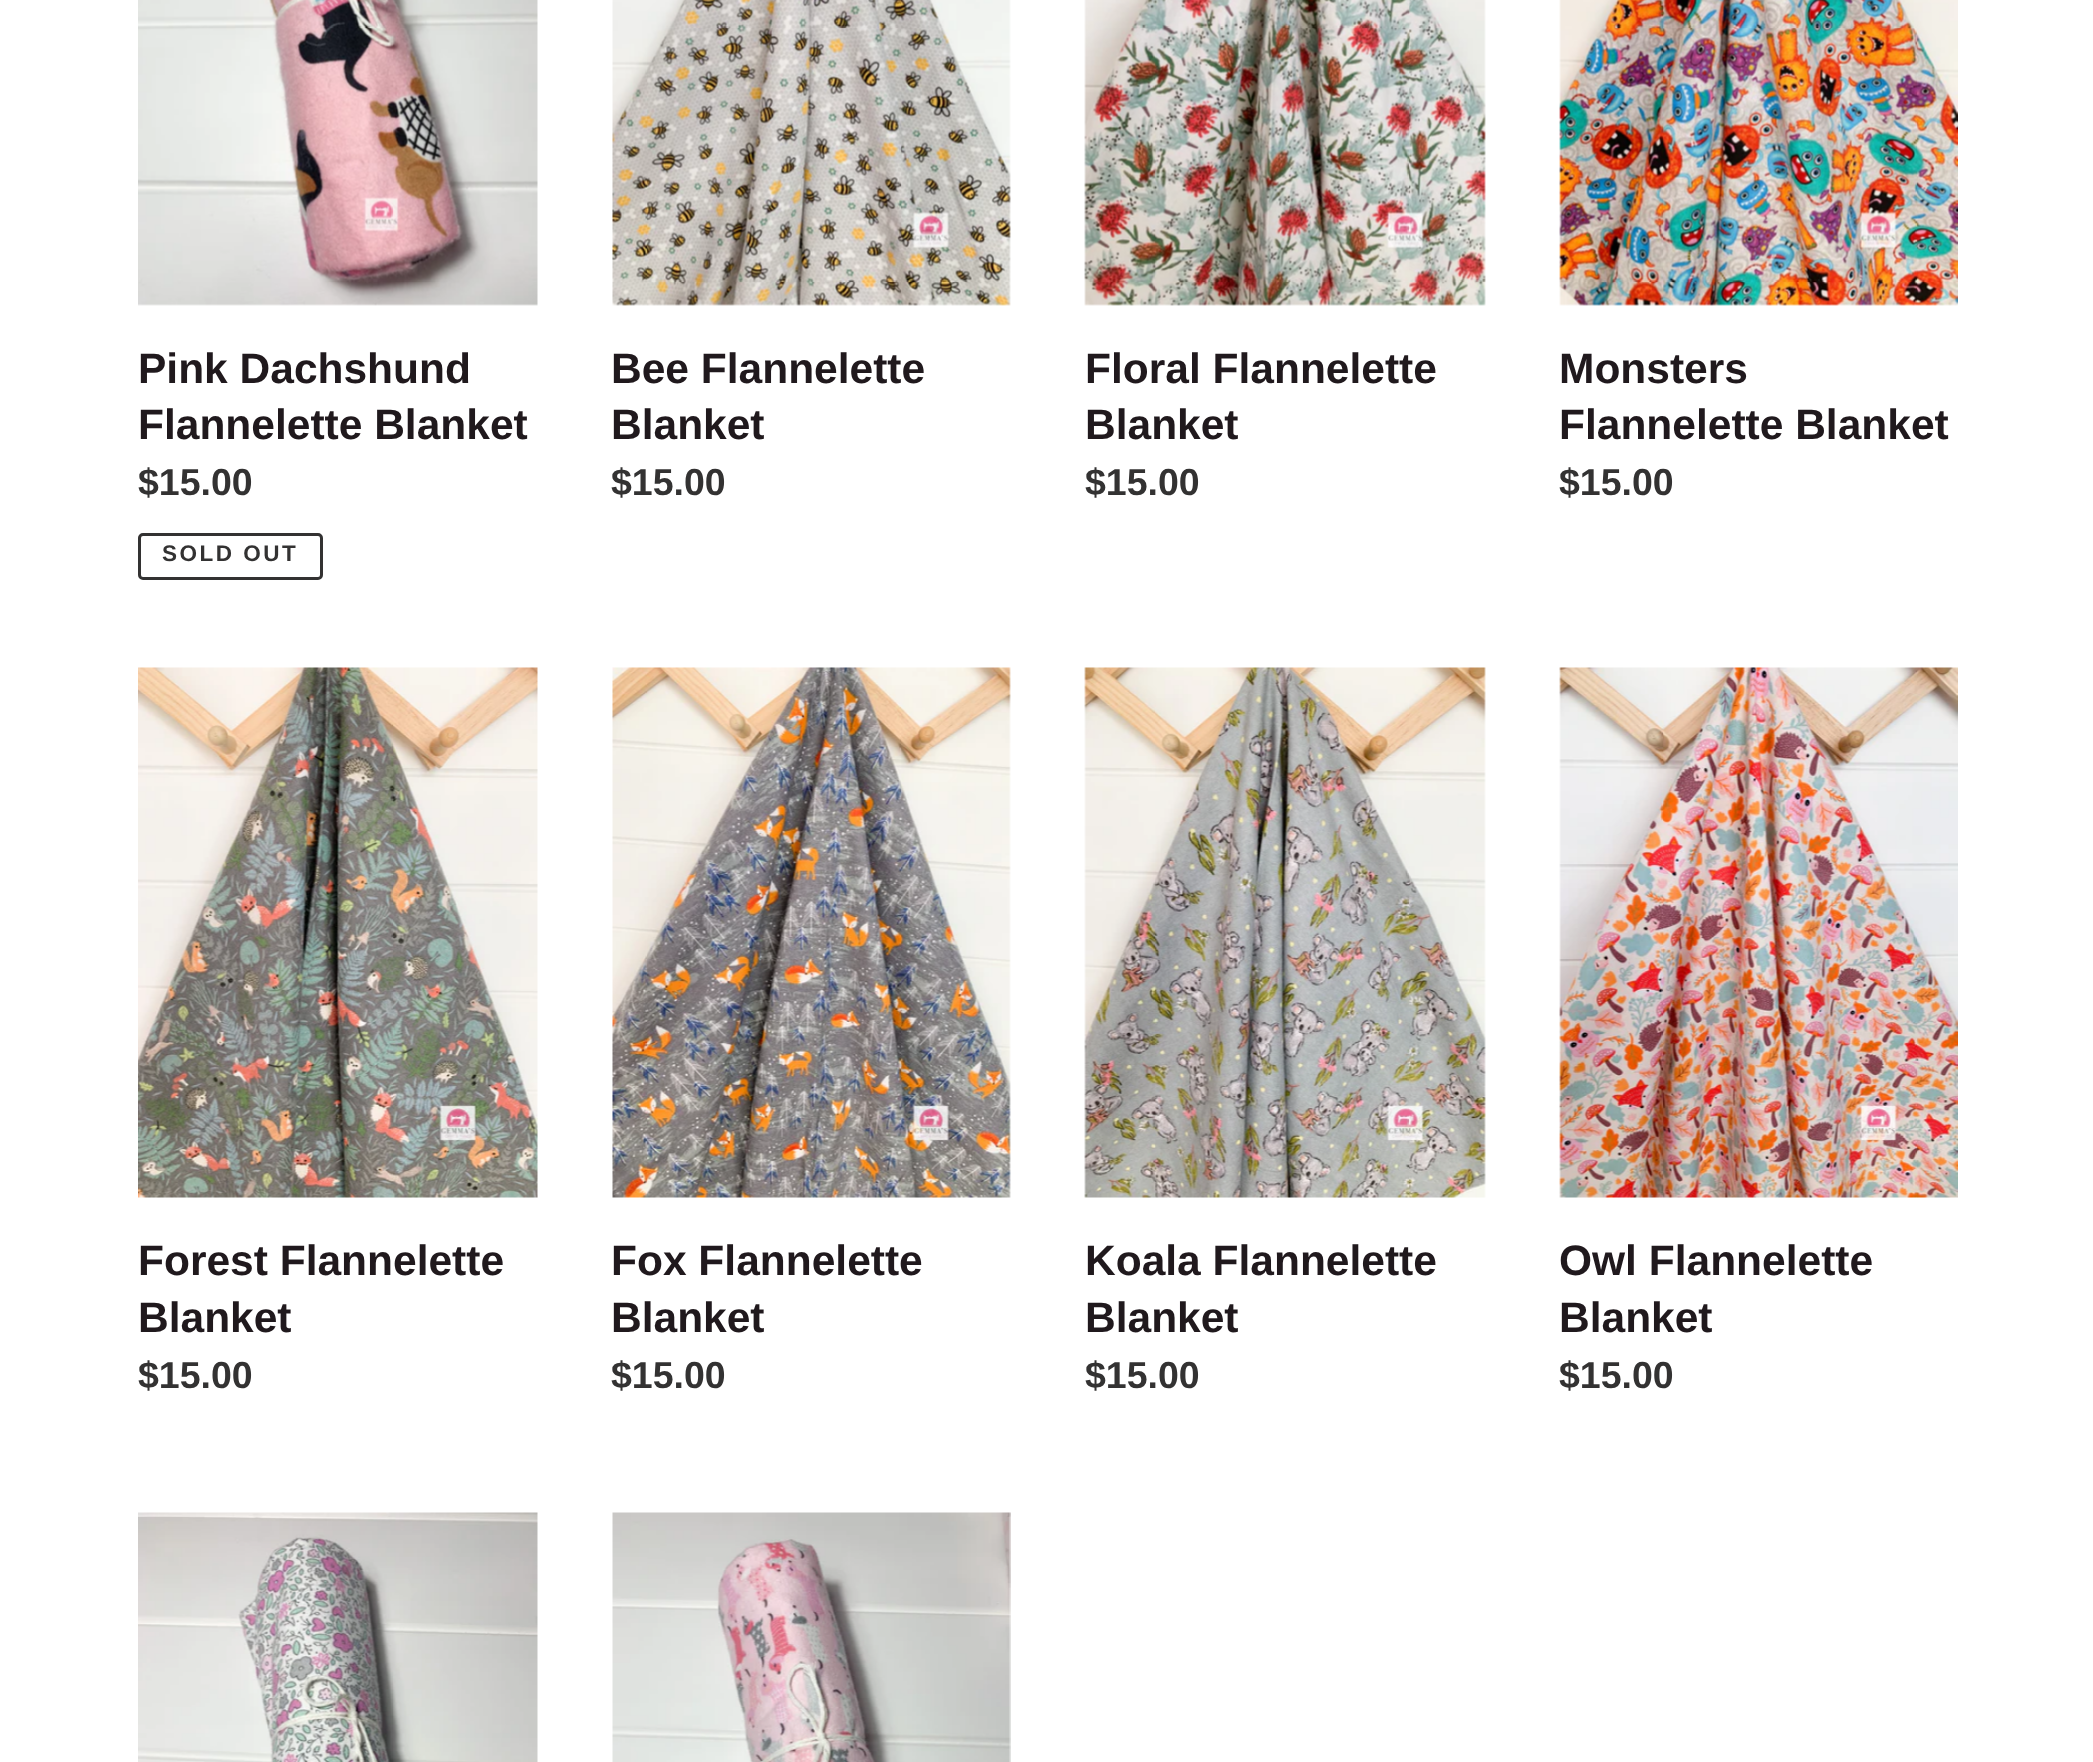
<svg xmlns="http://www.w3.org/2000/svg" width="2093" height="1762">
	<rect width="100%" height="100%" fill="#FFFFFF" />
	<image x="138" y="0" width="400" height="306" href="assets/img1.png" />
	<g font-family="Liberation Sans" font-size="42.5" font-weight="700" fill="#20191D">
		<text x="138" y="383">Pink Dachshund</text>
		<text x="138" y="439">Flannelette Blanket</text>
	</g>
	<text x="138" y="495" font-family="Liberation Sans" font-size="37.5" font-weight="700" fill="#333232">$15.00</text>
	<rect x="139.5" y="534.5" width="182" height="44" rx="3.5" fill="none" stroke="#333232" stroke-width="3" />
	<text x="162" y="561" font-family="Liberation Sans" font-size="22.5" font-weight="700" letter-spacing="2.5" fill="#333232">SOLD OUT</text>
	<image x="612" y="0" width="399" height="306" href="assets/img2.png" />
	<g font-family="Liberation Sans" font-size="42.5" font-weight="700" fill="#20191D">
		<text x="611" y="383">Bee Flannelette</text>
		<text x="611" y="439">Blanket</text>
	</g>
	<text x="611" y="495" font-family="Liberation Sans" font-size="37.5" font-weight="700" fill="#333232">$15.00</text>
	<image x="1084" y="0" width="402" height="306" href="assets/img3.png" />
	<g font-family="Liberation Sans" font-size="42.5" font-weight="700" fill="#20191D">
		<text x="1085" y="383">Floral Flannelette</text>
		<text x="1085" y="439">Blanket</text>
	</g>
	<text x="1085" y="495" font-family="Liberation Sans" font-size="37.5" font-weight="700" fill="#333232">$15.00</text>
	<image x="1559" y="0" width="399" height="306" href="assets/img4.png" />
	<g font-family="Liberation Sans" font-size="42.5" font-weight="700" fill="#20191D">
		<text x="1559" y="383">Monsters</text>
		<text x="1559" y="439">Flannelette Blanket</text>
	</g>
	<text x="1559" y="495" font-family="Liberation Sans" font-size="37.5" font-weight="700" fill="#333232">$15.00</text>
	<image x="138" y="667" width="400" height="531" href="assets/img5.png" />
	<g font-family="Liberation Sans" font-size="42.5" font-weight="700" fill="#20191D">
		<text x="138" y="1275">Forest Flannelette</text>
		<text x="138" y="1332">Blanket</text>
	</g>
	<text x="138" y="1388" font-family="Liberation Sans" font-size="37.5" font-weight="700" fill="#333232">$15.00</text>
	<image x="612" y="667" width="399" height="531" href="assets/img6.png" />
	<g font-family="Liberation Sans" font-size="42.5" font-weight="700" fill="#20191D">
		<text x="611" y="1275">Fox Flannelette</text>
		<text x="611" y="1332">Blanket</text>
	</g>
	<text x="611" y="1388" font-family="Liberation Sans" font-size="37.5" font-weight="700" fill="#333232">$15.00</text>
	<image x="1084" y="667" width="402" height="531" href="assets/img7.png" />
	<g font-family="Liberation Sans" font-size="42.5" font-weight="700" fill="#20191D">
		<text x="1085" y="1275">Koala Flannelette</text>
		<text x="1085" y="1332">Blanket</text>
	</g>
	<text x="1085" y="1388" font-family="Liberation Sans" font-size="37.5" font-weight="700" fill="#333232">$15.00</text>
	<image x="1559" y="667" width="399" height="531" href="assets/img8.png" />
	<g font-family="Liberation Sans" font-size="42.5" font-weight="700" fill="#20191D">
		<text x="1559" y="1275">Owl Flannelette</text>
		<text x="1559" y="1332">Blanket</text>
	</g>
	<text x="1559" y="1388" font-family="Liberation Sans" font-size="37.5" font-weight="700" fill="#333232">$15.00</text>
	<image x="138" y="1512" width="400" height="250" href="assets/img9.png" />
	<image x="612" y="1512" width="399" height="250" href="assets/img10.png" />
</svg>
